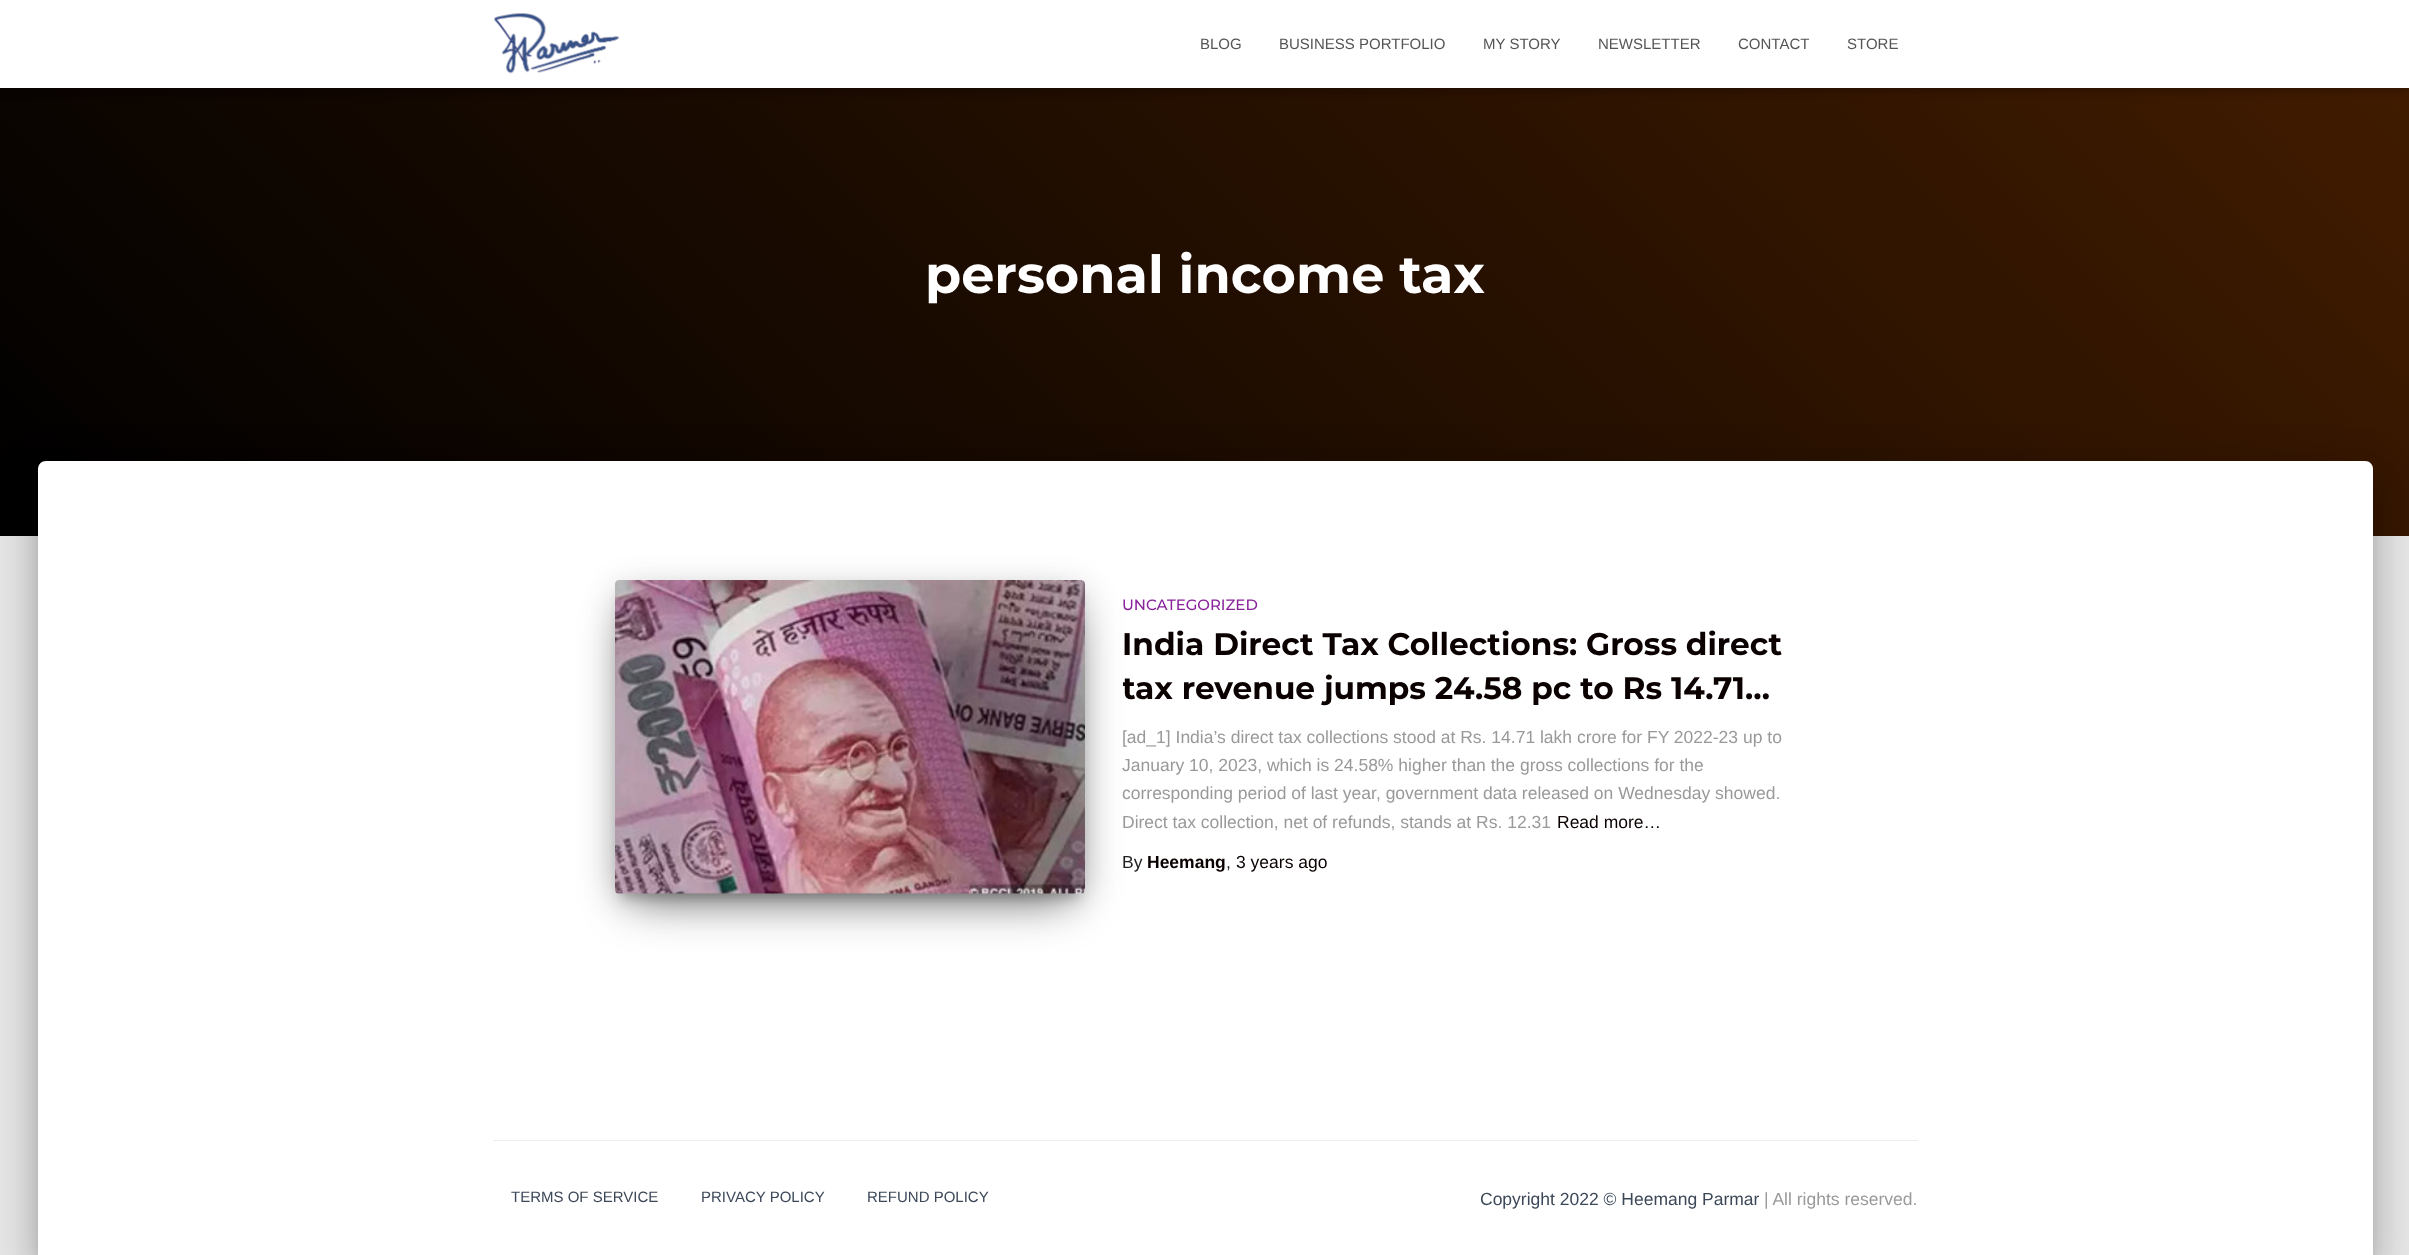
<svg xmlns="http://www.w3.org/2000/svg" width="2409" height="1255">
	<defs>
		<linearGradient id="g1" gradientUnits="userSpaceOnUse" x1="468" y1="1005" x2="1942" y2="-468"><stop offset="0" stop-color="#000000" /><stop offset="1" stop-color="#421C00" /></linearGradient>
		<clipPath id="clip1"><rect x="1123" y="623" width="673" height="87" /></clipPath>
	</defs>
	<rect width="100%" height="100%" fill="#E5E5E5" />
	<rect x="0" y="88" width="2409" height="448" fill="url(#g1)" />
	<rect x="3" y="8" width="2405" height="82" fill="#000000" fill-opacity="0.1" filter="blur(3px)" />
	<rect x="0" y="1" width="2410" height="88" fill="#000000" fill-opacity="0.12" filter="blur(6px)" />
	<rect x="8" y="9" width="2395" height="72" fill="#000000" fill-opacity="0.42" filter="blur(6px)" />
	<rect x="0" y="0" width="2409" height="88" fill="#FFFFFF" />
	<image x="494" y="13" width="126" height="61" href="assets/img1.png" />
	<g font-family="Liberation Sans" font-size="15" fill="#555555">
		<text x="1200" y="49">BLOG</text>
		<text x="1279" y="49">BUSINESS PORTFOLIO</text>
		<text x="1483" y="49">MY STORY</text>
		<text x="1598" y="49">NEWSLETTER</text>
		<text x="1738" y="49">CONTACT</text>
		<text x="1847" y="49">STORE</text>
	</g>
	<text x="925" y="293" font-family="Montserrat" font-size="52.5" font-weight="700" fill="#FFFFFF">personal income tax</text>
	<rect x="44" y="478" width="2322" height="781" rx="1" fill="#000000" fill-opacity="0.2" filter="blur(6px)" />
	<rect x="31" y="463" width="2348" height="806" rx="14" fill="#000000" fill-opacity="0.12" filter="blur(19px)" />
	<rect x="35" y="479" width="2340" height="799" rx="10" fill="#000000" fill-opacity="0.14" filter="blur(15px)" />
	<path d="M46 461H2365C2369.5 461 2373 464.5 2373 469V1255H38V469C38 464.5 41.5 461 46 461Z" fill="#FFFFFF" />
	<rect x="621" y="596" width="458" height="302" fill="#000000" fill-opacity="0.2" filter="blur(6px)" />
	<rect x="615" y="585" width="470" height="314" rx="4" fill="#000000" fill-opacity="0.12" filter="blur(15.5px)" />
	<rect x="630" y="615" width="440" height="284" fill="#000000" fill-opacity="0.56" filter="blur(24px)" />
	<image x="615" y="580" width="470" height="314" href="assets/img2.png" />
	<text x="1122" y="610" font-family="Montserrat" font-size="15" font-weight="500" fill="#89229B">UNCATEGORIZED</text>
	<text x="1122" y="655" font-family="Montserrat" font-size="31.25" font-weight="700" fill="#0A0000">India Direct Tax Collections: Gross direct</text>
	<g clip-path="url(#clip1)">
		<text x="1122" y="699" font-family="Montserrat" font-size="31.25" font-weight="700" fill="#0A0000">tax revenue jumps 24.58 pc to Rs 14.71…</text>
	</g>
	<g font-family="Liberation Sans" font-size="17.5" fill="#999999">
		<text x="1122" y="743">[ad_1] India’s direct tax collections stood at Rs. 14.71 lakh crore for FY 2022-23 up to</text>
		<text x="1122" y="771">January 10, 2023, which is 24.58% higher than the gross collections for the</text>
		<text x="1122" y="799">corresponding period of last year, government data released on Wednesday showed.</text>
		<text x="1122" y="828">Direct tax collection, net of refunds, stands at Rs. 12.31</text>
	</g>
	<text x="1557" y="828" font-family="Liberation Sans" font-size="17.5" fill="#0A0000">Read more…</text>
	<text x="1122" y="868" font-family="Liberation Sans" font-size="17.5" fill="#212121">By</text>
	<text x="1147" y="868" font-family="Liberation Sans" font-size="17.5" font-weight="700" fill="#0A0000">Heemang</text>
	<text x="1226" y="868" font-family="Liberation Sans" font-size="17.5" fill="#212121">,</text>
	<text x="1236" y="868" font-family="Liberation Sans" font-size="17.5" fill="#0A0000">3 years ago</text>
	<rect x="493" y="1140" width="1425" height="1" fill="#EEEEEE" />
	<g font-family="Liberation Sans" font-size="15" fill="#3C4858">
		<text x="511" y="1202">TERMS OF SERVICE</text>
		<text x="701" y="1202">PRIVACY POLICY</text>
		<text x="867" y="1202">REFUND POLICY</text>
	</g>
	<text x="1480" y="1205" font-family="Liberation Sans" font-size="17.5" fill="#3C4858">Copyright 2022 © Heemang Parmar</text>
	<text x="1764" y="1205" font-family="Liberation Sans" font-size="17.5" fill="#999999">| All rights reserved.</text>
</svg>
